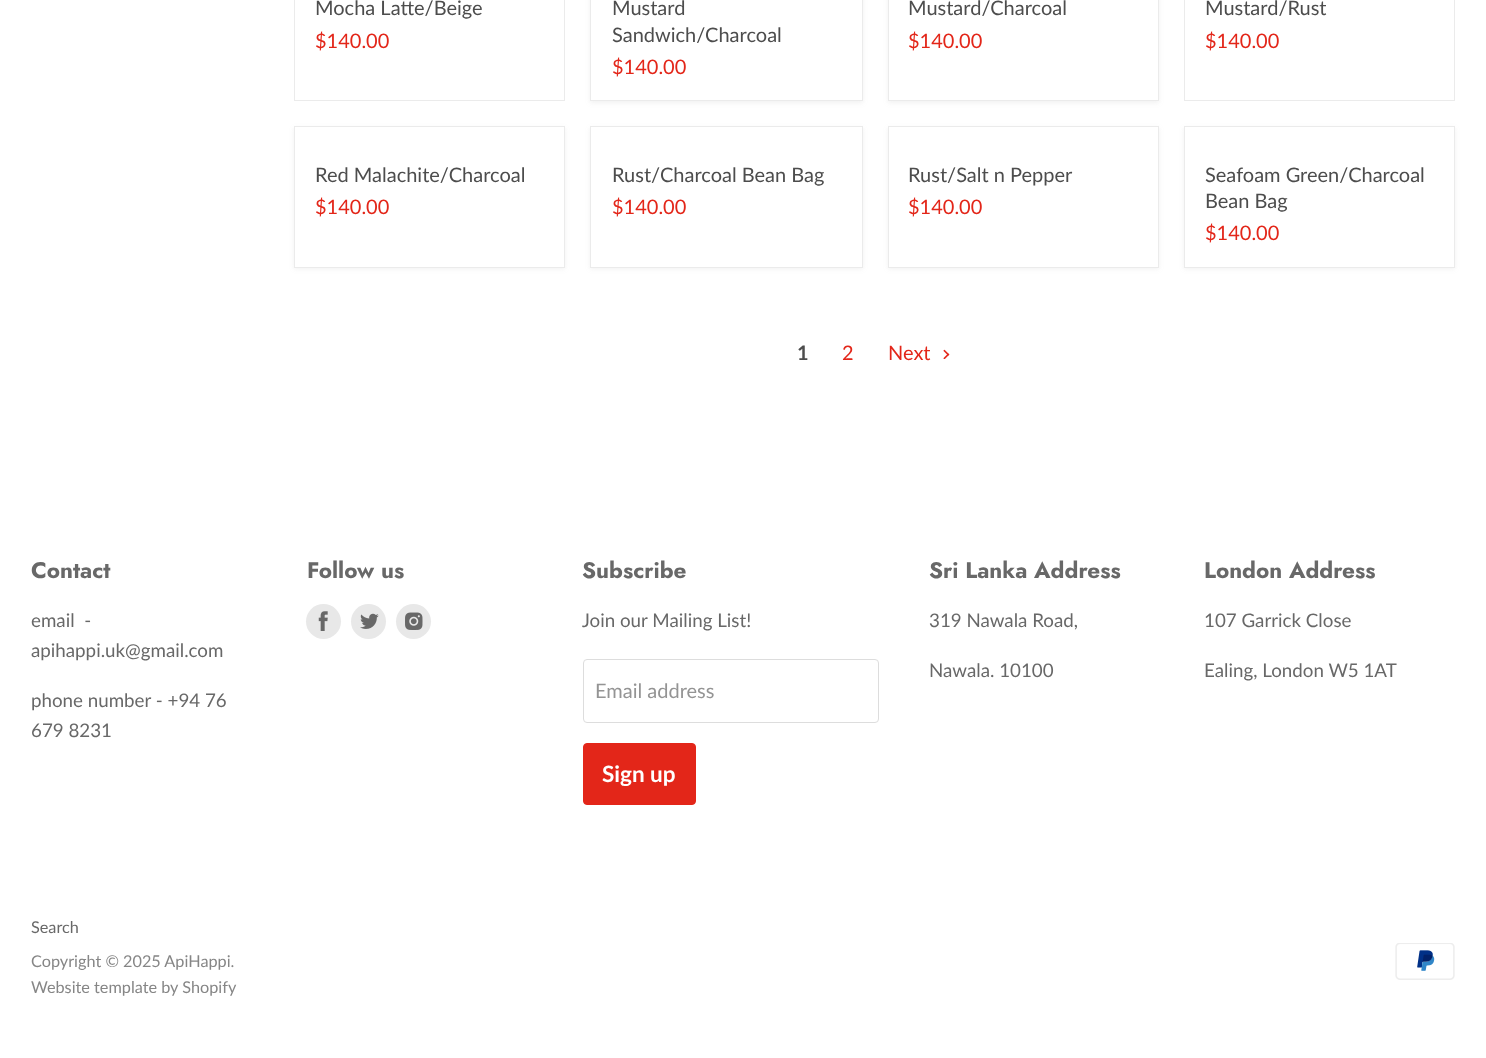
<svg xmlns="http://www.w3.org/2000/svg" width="1486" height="1058">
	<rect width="100%" height="100%" fill="#FFFFFF" />
	<rect x="294.5" y="-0.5" width="270" height="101" fill="none" stroke="#EBEBEB" />
	<text x="315" y="15" font-family="Lato" font-size="20" fill="#4D4D4D">Mocha Latte/Beige</text>
	<text x="315" y="48" font-family="Lato" font-size="20" fill="#E32619">$140.00</text>
	<rect x="590" y="-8" width="273" height="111" fill="#7F7F7F" fill-opacity="0.11" filter="blur(2.5px)" />
	<rect x="590.5" y="-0.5" width="272" height="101" fill="#FFFFFF" stroke="#EBEBEB" />
	<g font-family="Lato" font-size="20" fill="#4D4D4D">
		<text x="612" y="15">Mustard</text>
		<text x="612" y="42">Sandwich/Charcoal</text>
	</g>
	<text x="612" y="74" font-family="Lato" font-size="20" fill="#E32619">$140.00</text>
	<rect x="888" y="-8" width="271" height="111" fill="#7F7F7F" fill-opacity="0.11" filter="blur(2.5px)" />
	<rect x="888.5" y="-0.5" width="270" height="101" fill="#FFFFFF" stroke="#EBEBEB" />
	<text x="908" y="15" font-family="Lato" font-size="20" fill="#4D4D4D">Mustard/Charcoal</text>
	<text x="908" y="48" font-family="Lato" font-size="20" fill="#E32619">$140.00</text>
	<rect x="1184.5" y="-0.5" width="270" height="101" fill="none" stroke="#EBEBEB" />
	<text x="1205" y="15" font-family="Lato" font-size="20" fill="#4D4D4D">Mustard/Rust</text>
	<text x="1205" y="48" font-family="Lato" font-size="20" fill="#E32619">$140.00</text>
	<rect x="294" y="128" width="271" height="141" fill="#7F7F7F" fill-opacity="0.11" filter="blur(2.5px)" />
	<rect x="294.5" y="126.5" width="270" height="141" fill="#FFFFFF" stroke="#EBEBEB" />
	<text x="315" y="182" font-family="Lato" font-size="20" fill="#4D4D4D">Red Malachite/Charcoal</text>
	<text x="315" y="214" font-family="Lato" font-size="20" fill="#E32619">$140.00</text>
	<rect x="590" y="128" width="273" height="141" fill="#7F7F7F" fill-opacity="0.11" filter="blur(2.5px)" />
	<rect x="590.5" y="126.5" width="272" height="141" fill="#FFFFFF" stroke="#EBEBEB" />
	<text x="612" y="182" font-family="Lato" font-size="20" fill="#4D4D4D">Rust/Charcoal Bean Bag</text>
	<text x="612" y="214" font-family="Lato" font-size="20" fill="#E32619">$140.00</text>
	<rect x="888" y="128" width="271" height="141" fill="#7F7F7F" fill-opacity="0.11" filter="blur(2.5px)" />
	<rect x="888.5" y="126.5" width="270" height="141" fill="#FFFFFF" stroke="#EBEBEB" />
	<text x="908" y="182" font-family="Lato" font-size="20" fill="#4D4D4D">Rust/Salt n Pepper</text>
	<text x="908" y="214" font-family="Lato" font-size="20" fill="#E32619">$140.00</text>
	<rect x="1184" y="128" width="271" height="141" fill="#7F7F7F" fill-opacity="0.11" filter="blur(2.5px)" />
	<rect x="1184.5" y="126.5" width="270" height="141" fill="#FFFFFF" stroke="#EBEBEB" />
	<g font-family="Lato" font-size="20" fill="#4D4D4D">
		<text x="1205" y="182">Seafoam Green/Charcoal</text>
		<text x="1205" y="208">Bean Bag</text>
	</g>
	<text x="1205" y="240" font-family="Lato" font-size="20" fill="#E32619">$140.00</text>
	<text x="797" y="360" font-family="Lato" font-size="20" font-weight="700" fill="#4D4D4D">1</text>
	<g font-family="Lato" font-size="20" fill="#E32619">
		<text x="842" y="360">2</text>
		<text x="888" y="360">Next</text>
	</g>
	<image x="943" y="349" width="7" height="10" href="assets/img1.png" />
	<text x="31" y="578" font-family="Jost" font-size="22.5" font-weight="700" fill="#686868">Contact</text>
	<g font-family="Lato" font-size="18.75" fill="#686868">
		<text x="31" y="627" xml:space="preserve">email  -</text>
		<text x="31" y="657">apihappi.uk@gmail.com</text>
		<text x="31" y="707">phone number - +94 76</text>
		<text x="31" y="737">679 8231</text>
	</g>
	<text x="307" y="578" font-family="Jost" font-size="22.5" font-weight="700" fill="#686868">Follow us</text>
	<circle cx="323.5" cy="621.5" r="17.5" fill="#E8E8E8" />
	<image x="318" y="611" width="10" height="20" href="assets/img2.png" />
	<circle cx="368.5" cy="621.5" r="17.5" fill="#E8E8E8" />
	<image x="360" y="613" width="19" height="16" href="assets/img3.png" />
	<circle cx="413.5" cy="621.5" r="17.5" fill="#E8E8E8" />
	<image x="405" y="612" width="18" height="18" href="assets/img4.png" />
	<text x="582" y="578" font-family="Jost" font-size="22.5" font-weight="700" fill="#686868">Subscribe</text>
	<text x="582" y="627" font-family="Lato" font-size="18.75" fill="#686868">Join our Mailing List!</text>
	<rect x="583.5" y="659.5" width="295" height="63" rx="3.5" fill="none" stroke="#DDDDDD" />
	<text x="595" y="698" font-family="Lato" font-size="20" fill="#949494">Email address</text>
	<rect x="583.5" y="743.5" width="112" height="61" rx="3.5" fill="#E32619" stroke="#E32619" />
	<text x="602" y="782" font-family="Lato" font-size="22.5" font-weight="700" fill="#FFFFFF">Sign up</text>
	<text x="929" y="578" font-family="Jost" font-size="22.5" font-weight="700" fill="#686868">Sri Lanka Address</text>
	<g font-family="Lato" font-size="18.75" fill="#686868">
		<text x="929" y="627">319 Nawala Road,</text>
		<text x="929" y="677">Nawala. 10100</text>
	</g>
	<text x="1204" y="578" font-family="Jost" font-size="22.5" font-weight="700" fill="#686868">London Address</text>
	<g font-family="Lato" font-size="18.75" fill="#686868">
		<text x="1204" y="627">107 Garrick Close</text>
		<text x="1204" y="677">Ealing, London W5 1AT</text>
	</g>
	<text x="31" y="933" font-family="Lato" font-size="16.25" fill="#686868">Search</text>
	<g font-family="Lato" font-size="16.25" fill="#868686">
		<text x="31" y="967">Copyright © 2025 ApiHappi.</text>
		<text x="31" y="993">Website template by Shopify</text>
	</g>
	<image x="1395" y="943" width="60" height="37" href="assets/img5.png" />
</svg>
